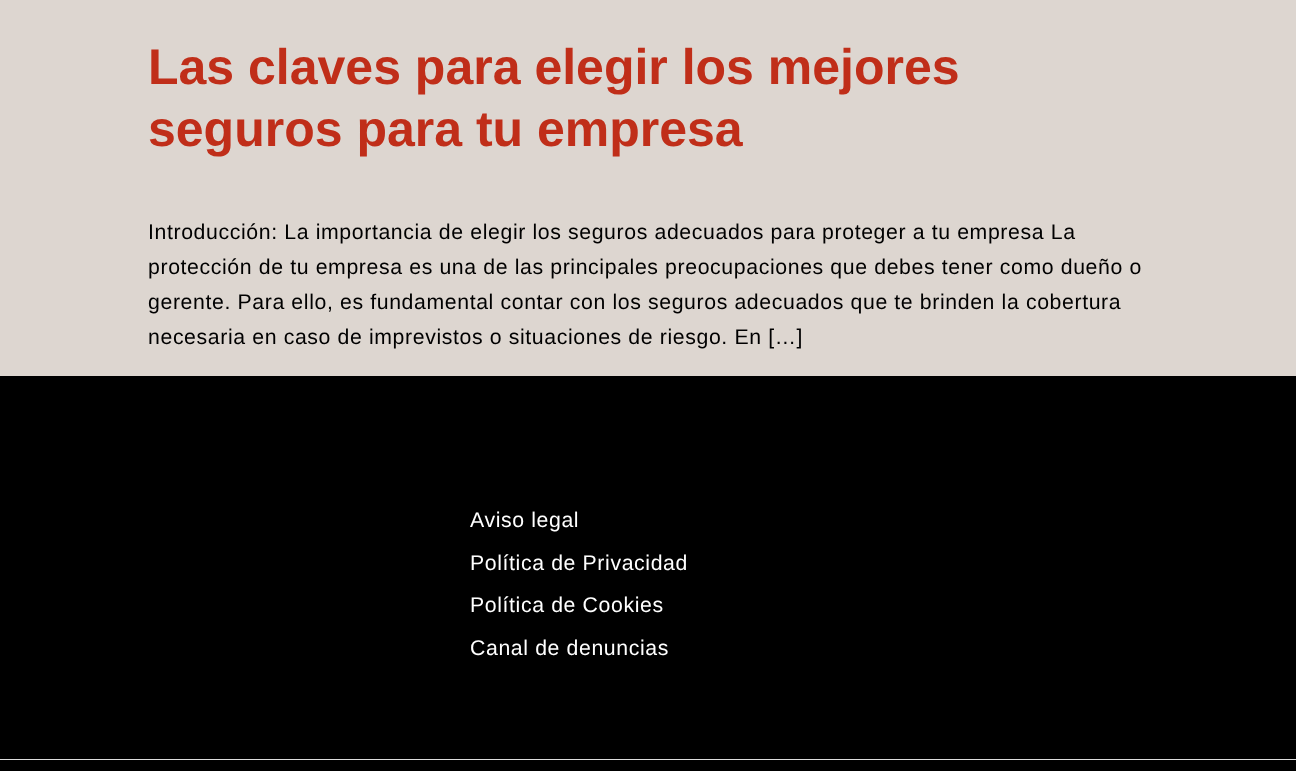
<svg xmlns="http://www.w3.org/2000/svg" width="1296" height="771">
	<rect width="100%" height="100%" fill="#DDD6D0" />
	<g font-family="Liberation Sans" font-size="50" font-weight="700" fill="#C02E19">
		<text x="148" y="84">Las claves para elegir los mejores</text>
		<text x="148" y="146">seguros para tu empresa</text>
	</g>
	<g font-family="Liberation Sans" font-size="21.25" letter-spacing="0.62" fill="#000000">
		<text x="148" y="239">Introducción: La importancia de elegir los seguros adecuados para proteger a tu empresa La</text>
		<text x="148" y="274">protección de tu empresa es una de las principales preocupaciones que debes tener como dueño o</text>
		<text x="148" y="309">gerente. Para ello, es fundamental contar con los seguros adecuados que te brinden la cobertura</text>
		<text x="148" y="344">necesaria en caso de imprevistos o situaciones de riesgo. En […]</text>
	</g>
	<rect x="0" y="376" width="1296" height="383" fill="#000000" />
	<g font-family="Liberation Sans" font-size="21.25" letter-spacing="0.62" fill="#FFFFFF">
		<text x="470" y="527">Aviso legal</text>
		<text x="470" y="570">Política de Privacidad</text>
		<text x="470" y="612">Política de Cookies</text>
		<text x="470" y="655">Canal de denuncias</text>
	</g>
	<rect x="0" y="760" width="1296" height="11" fill="#000000" />
	<rect x="0" y="759" width="1296" height="1" fill="#DDDDDD" />
</svg>
